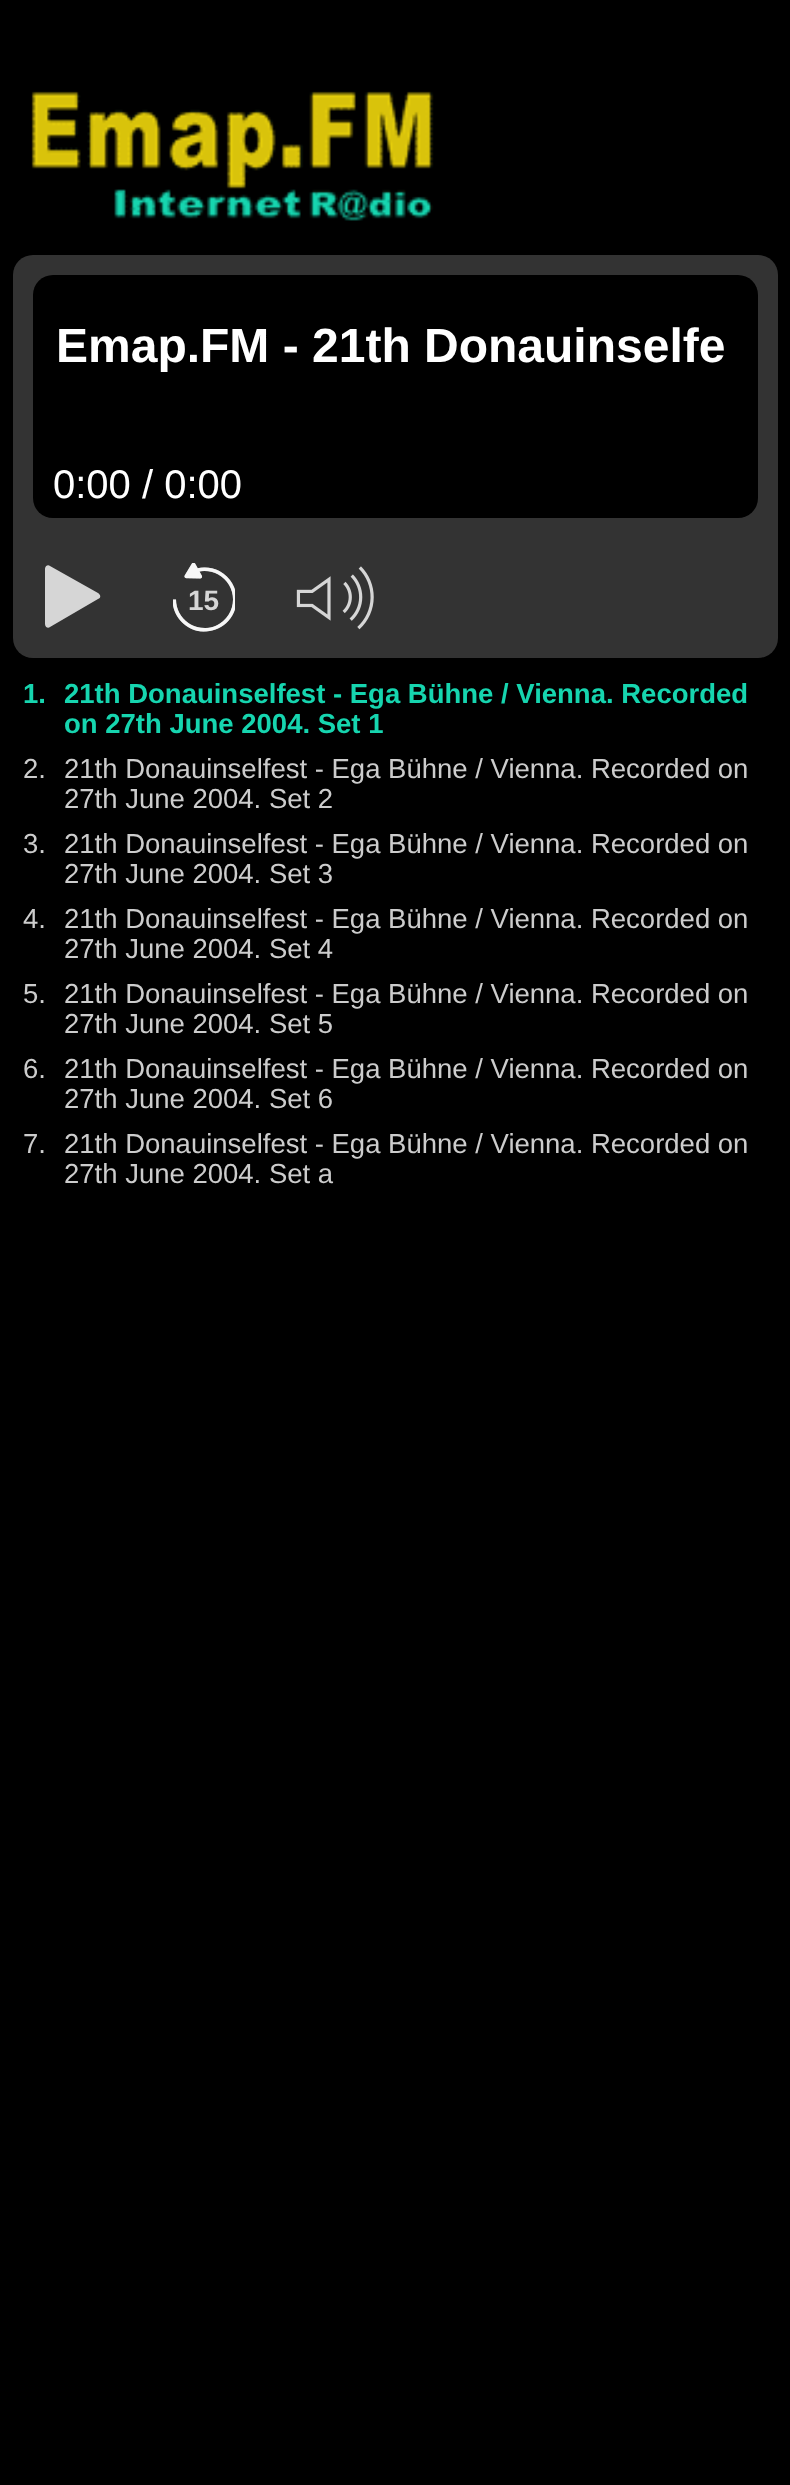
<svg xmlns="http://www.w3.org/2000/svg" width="790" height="2485">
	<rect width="100%" height="100%" fill="#000000" />
	<image x="31" y="91" width="403" height="130" href="assets/img1.png" />
	<rect x="13" y="255" width="765" height="403" rx="20" fill="#333333" />
	<rect x="33" y="275" width="725" height="243" rx="20" fill="#000000" />
	<text x="56" y="362" font-family="Liberation Sans" font-size="48" font-weight="700" fill="#FFFFFF">Emap.FM - 21th Donauinselfe</text>
	<text x="53" y="498" font-family="Liberation Sans" font-size="40" fill="#FFFFFF">0:00 / 0:00</text>
	<path d="M98 593C101 595 101 598 98 599L50 627C48 629 45 627 45 624V569C45 566 48 564 50 566Z" fill="#D6D6D6" />
	<image x="173" y="563" width="62" height="69" href="assets/img2.png" />
	<text x="188" y="610" font-family="Liberation Sans" font-size="28" font-weight="700" fill="#D6D6D6">15</text>
	<image x="296" y="566" width="78" height="64" href="assets/img3.png" />
	<g font-family="Liberation Sans" font-size="27.5" font-weight="700" fill="#16D5AF">
		<text x="23" y="703">1.</text>
		<text x="64" y="703">21th Donauinselfest - Ega Bühne / Vienna. Recorded</text>
		<text x="64" y="733">on 27th June 2004. Set 1</text>
	</g>
	<g font-family="Liberation Sans" font-size="27.5" fill="#CCCCCC">
		<text x="23" y="778">2.</text>
		<text x="64" y="778">21th Donauinselfest - Ega Bühne / Vienna. Recorded on</text>
		<text x="64" y="808">27th June 2004. Set 2</text>
		<text x="23" y="853">3.</text>
		<text x="64" y="853">21th Donauinselfest - Ega Bühne / Vienna. Recorded on</text>
		<text x="64" y="883">27th June 2004. Set 3</text>
		<text x="23" y="928">4.</text>
		<text x="64" y="928">21th Donauinselfest - Ega Bühne / Vienna. Recorded on</text>
		<text x="64" y="958">27th June 2004. Set 4</text>
		<text x="23" y="1003">5.</text>
		<text x="64" y="1003">21th Donauinselfest - Ega Bühne / Vienna. Recorded on</text>
		<text x="64" y="1033">27th June 2004. Set 5</text>
		<text x="23" y="1078">6.</text>
		<text x="64" y="1078">21th Donauinselfest - Ega Bühne / Vienna. Recorded on</text>
		<text x="64" y="1108">27th June 2004. Set 6</text>
		<text x="23" y="1153">7.</text>
		<text x="64" y="1153">21th Donauinselfest - Ega Bühne / Vienna. Recorded on</text>
		<text x="64" y="1183">27th June 2004. Set a</text>
	</g>
</svg>
